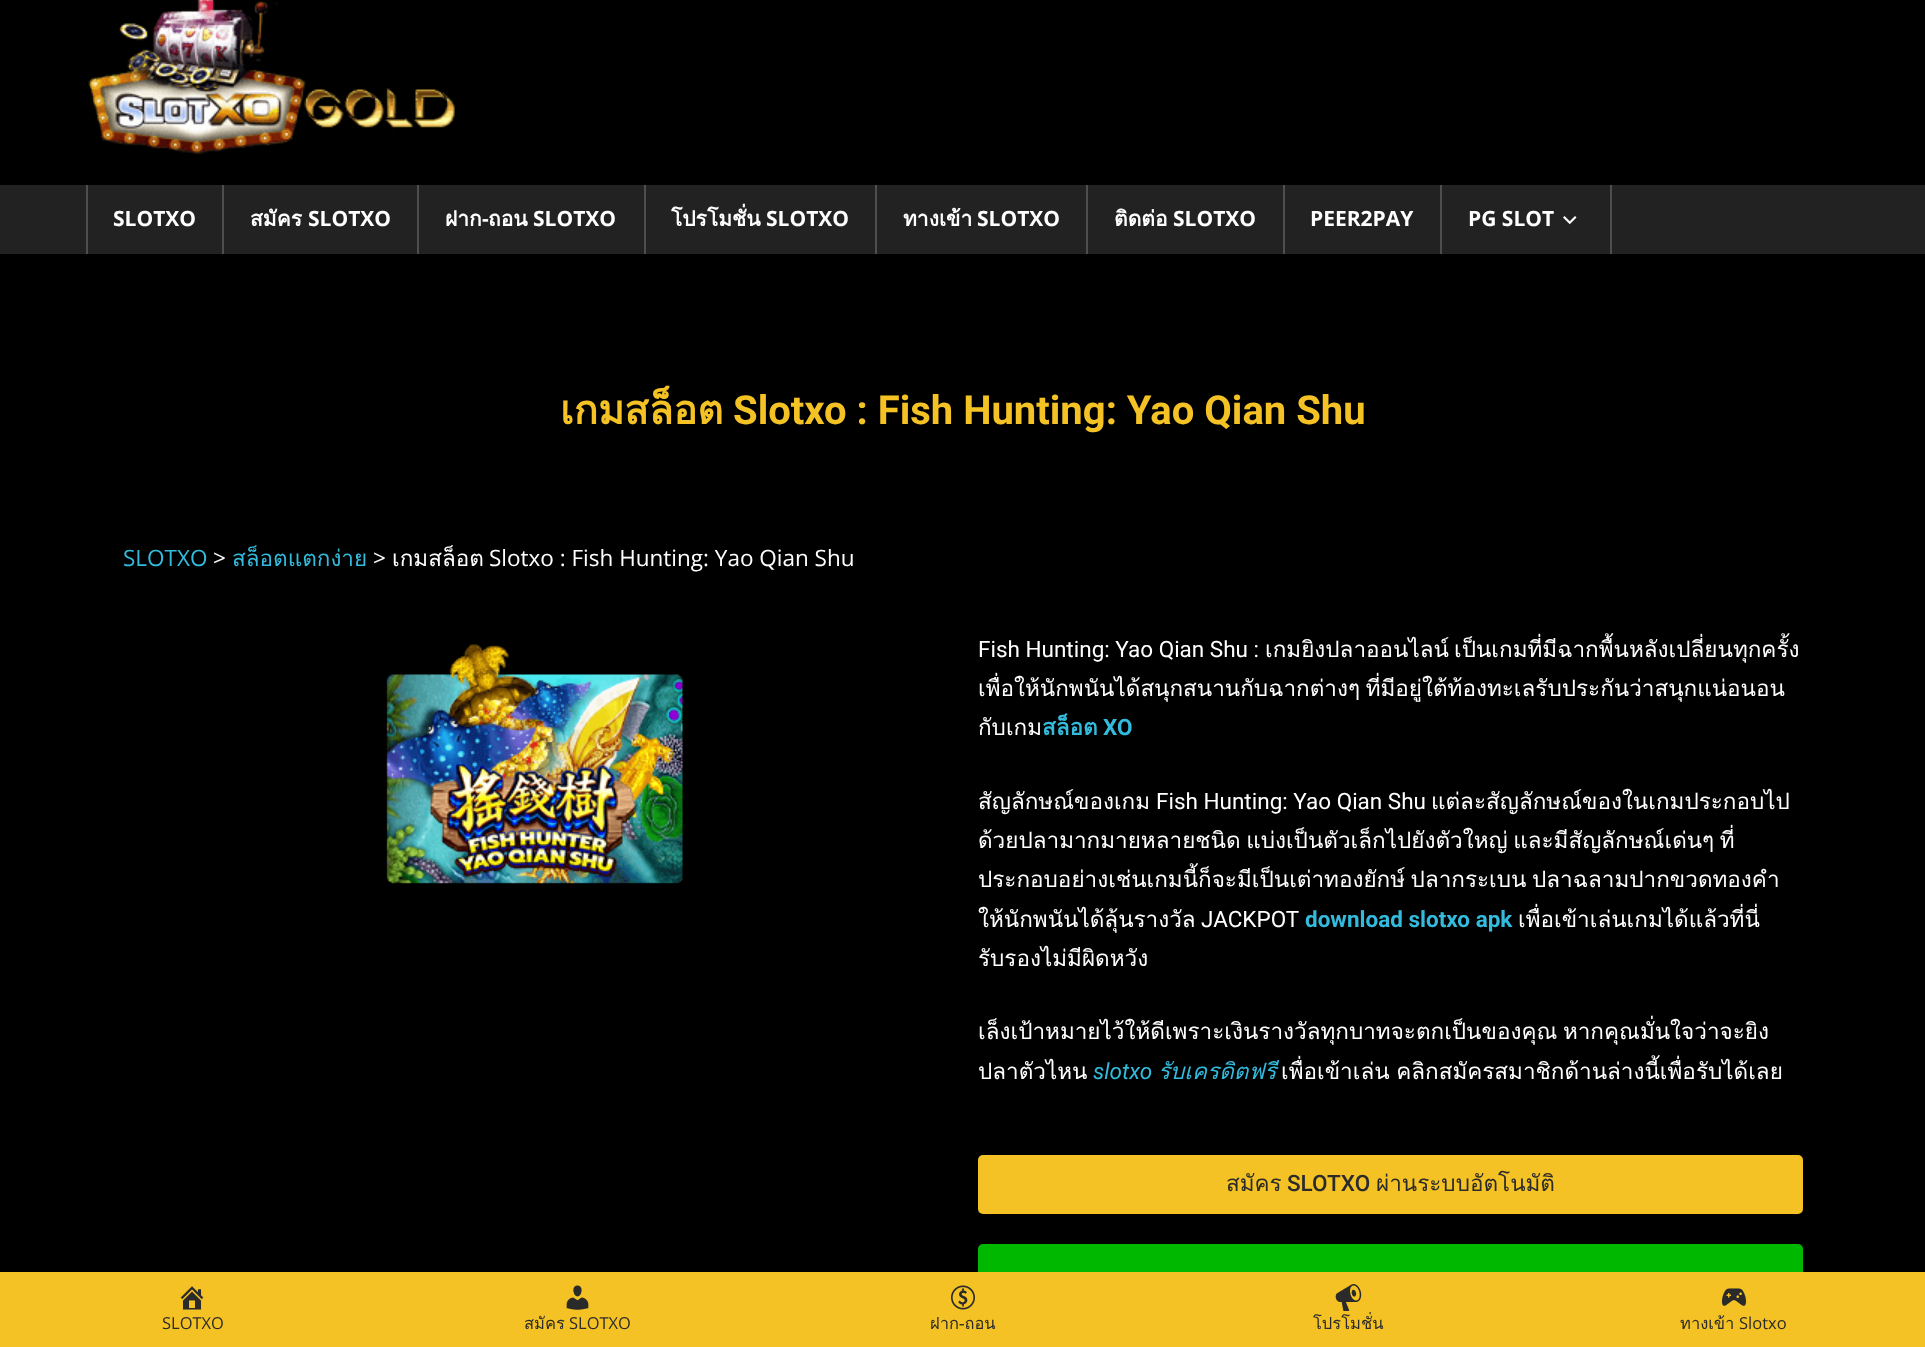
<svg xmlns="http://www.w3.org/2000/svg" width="1925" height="1347">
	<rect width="100%" height="100%" fill="#000000" />
	<image x="88" y="0" width="367" height="155" href="assets/img1.png" />
	<rect x="0" y="185" width="1925" height="69" fill="#222222" />
	<rect x="86" y="185" width="2" height="69" fill="#4E4E4E" />
	<rect x="222" y="185" width="2" height="69" fill="#4E4E4E" />
	<text x="113" y="226" font-family="Open Sans" font-size="21" font-weight="700" fill="#FFFFFF">SLOTXO</text>
	<rect x="417" y="185" width="2" height="69" fill="#4E4E4E" />
	<text x="250" y="226" font-family="Loma" font-size="21" font-weight="700" fill="#FFFFFF">สมัคร</text>
	<text x="308" y="226" font-family="Open Sans" font-size="21" font-weight="700" fill="#FFFFFF">SLOTXO</text>
	<rect x="644" y="185" width="2" height="69" fill="#4E4E4E" />
	<text x="445" y="226" font-family="Loma" font-size="21" font-weight="700" fill="#FFFFFF">ฝาก</text>
	<text x="482" y="226" font-family="Open Sans" font-size="21" font-weight="700" fill="#FFFFFF">-</text>
	<text x="488" y="226" font-family="Loma" font-size="21" font-weight="700" fill="#FFFFFF">ถอน</text>
	<text x="533" y="226" font-family="Open Sans" font-size="21" font-weight="700" fill="#FFFFFF">SLOTXO</text>
	<rect x="875" y="185" width="2" height="69" fill="#4E4E4E" />
	<text x="671" y="226" font-family="Loma" font-size="21" font-weight="700" fill="#FFFFFF">โปรโมชั่น</text>
	<text x="766" y="226" font-family="Open Sans" font-size="21" font-weight="700" fill="#FFFFFF">SLOTXO</text>
	<rect x="1086" y="185" width="2" height="69" fill="#4E4E4E" />
	<text x="903" y="226" font-family="Loma" font-size="21" font-weight="700" fill="#FFFFFF">ทางเข้า</text>
	<text x="977" y="226" font-family="Open Sans" font-size="21" font-weight="700" fill="#FFFFFF">SLOTXO</text>
	<rect x="1283" y="185" width="2" height="69" fill="#4E4E4E" />
	<text x="1114" y="226" font-family="Loma" font-size="21" font-weight="700" fill="#FFFFFF">ติดต่อ</text>
	<text x="1173" y="226" font-family="Open Sans" font-size="21" font-weight="700" fill="#FFFFFF">SLOTXO</text>
	<rect x="1440" y="185" width="2" height="69" fill="#4E4E4E" />
	<text x="1310" y="226" font-family="Open Sans" font-size="21" font-weight="700" fill="#FFFFFF">PEER2PAY</text>
	<rect x="1610" y="185" width="2" height="69" fill="#4E4E4E" />
	<text x="1468" y="226" font-family="Open Sans" font-size="21" font-weight="700" fill="#FFFFFF">PG SLOT</text>
	<image x="1563" y="216" width="14" height="9" href="assets/img2.png" />
	<text x="560" y="424" font-family="Loma" font-size="40" font-weight="700" fill="#F4C224">เกมสล็อต</text>
	<text x="733" y="424" font-family="Roboto" font-size="40" font-weight="700" fill="#F4C224">Slotxo : Fish Hunting: Yao Qian Shu</text>
	<text x="123" y="566" font-family="Open Sans" font-size="22.5" fill="#33BBDD">SLOTXO</text>
	<text x="213" y="566" font-family="Open Sans" font-size="22.5" fill="#FFFFFF">&gt;</text>
	<text x="232" y="566" font-family="Loma" font-size="22.5" fill="#33BBDD">สล็อตแตกง่าย</text>
	<text x="373" y="566" font-family="Open Sans" font-size="22.5" fill="#FFFFFF">&gt;</text>
	<text x="392" y="566" font-family="Loma" font-size="22.5" fill="#FFFFFF">เกมสล็อต</text>
	<text x="489" y="566" font-family="Open Sans" font-size="22.5" fill="#FFFFFF">Slotxo : Fish Hunting: Yao Qian Shu</text>
	<image x="386" y="644" width="297" height="240" href="assets/img3.png" />
	<text x="978" y="657" font-family="Roboto" font-size="22.5" fill="#FFFFFF">Fish Hunting: Yao Qian Shu :</text>
	<g font-family="Loma" font-size="22.5" fill="#FFFFFF">
		<text x="1265" y="657">เกมยิงปลาออนไลน์</text>
		<text x="1454" y="657">เป็นเกมที่มีฉากพื้นหลังเปลี่ยนทุกครั้ง</text>
		<text x="978" y="696" word-spacing="-2">เพื่อให้นักพนันได้สนุกสนานกับฉากต่างๆ ที่มีอยู่ใต้ท้องทะเลรับประกันว่าสนุกแน่อนอน</text>
		<text x="978" y="735">กับเกม</text>
	</g>
	<text x="1042" y="735" font-family="Loma" font-size="22.5" font-weight="700" fill="#33BBDD">สล็อต</text>
	<text x="1103" y="735" font-family="Roboto" font-size="22.5" font-weight="700" fill="#33BBDD">XO</text>
	<text x="978" y="809" font-family="Loma" font-size="22.5" fill="#FFFFFF">สัญลักษณ์ของเกม</text>
	<text x="1156" y="809" font-family="Roboto" font-size="22.5" fill="#FFFFFF">Fish Hunting: Yao Qian Shu</text>
	<g font-family="Loma" font-size="22.5" fill="#FFFFFF">
		<text x="1431" y="809">แต่ละสัญลักษณ์ของในเกมประกอบไป</text>
		<text x="978" y="848" word-spacing="-2">ด้วยปลามากมายหลายชนิด แบ่งเป็นตัวเล็กไปยังตัวใหญ่ และมีสัญลักษณ์เด่นๆ ที่</text>
		<text x="978" y="887" word-spacing="-2">ประกอบอย่างเช่นเกมนี้ก็จะมีเป็นเต่าทองยักษ์ ปลากระเบน ปลาฉลามปากขวดทองคำ</text>
		<text x="978" y="927">ให้นักพนันได้ลุ้นรางวัล</text>
	</g>
	<text x="1201" y="927" font-family="Roboto" font-size="22.5" fill="#FFFFFF">JACKPOT</text>
	<text x="1305" y="927" font-family="Roboto" font-size="22.5" font-weight="700" fill="#33BBDD">download slotxo apk</text>
	<g font-family="Loma" font-size="22.5" fill="#FFFFFF">
		<text x="1518" y="927">เพื่อเข้าเล่นเกมได้แล้วที่นี่</text>
		<text x="978" y="966">รับรองไม่มีผิดหวัง</text>
		<text x="978" y="1039" word-spacing="-2">เล็งเป้าหมายไว้ให้ดีเพราะเงินรางวัลทุกบาทจะตกเป็นของคุณ หากคุณมั่นใจว่าจะยิง</text>
		<text x="978" y="1079">ปลาตัวไหน</text>
	</g>
	<text x="1093" y="1079" font-family="Roboto" font-size="22.5" font-style="italic" fill="#33BBDD">slotxo</text>
	<text x="1158" y="1079" font-family="Loma" font-size="22.5" font-style="italic" fill="#33BBDD">รับเครดิตฟรี</text>
	<text x="1281" y="1079" word-spacing="-1" font-family="Loma" font-size="22.5" fill="#FFFFFF">เพื่อเข้าเล่น คลิกสมัครสมาชิกด้านล่างนี้เพื่อรับได้เลย</text>
	<rect x="978" y="1155" width="825" height="59" rx="5" fill="#F4C224" />
	<text x="1226" y="1191" font-family="Loma" font-size="22.5" fill="#2B2B2B">สมัคร</text>
	<text x="1287" y="1191" font-family="Roboto" font-size="22.5" font-weight="500" fill="#2B2B2B">SLOTXO</text>
	<text x="1376" y="1191" font-family="Loma" font-size="22.5" fill="#2B2B2B">ผ่านระบบอัตโนมัติ</text>
	<rect x="978" y="1244" width="825" height="58" rx="5" fill="#01B801" />
	<rect x="0" y="1272" width="1925" height="75" fill="#F4C224" />
	<image x="180" y="1286" width="24" height="24" href="assets/img4.png" />
	<text x="162" y="1329" font-family="Open Sans" font-size="16.5" fill="#2B2B2B">SLOTXO</text>
	<image x="566" y="1285" width="23" height="25" href="assets/img5.png" />
	<text x="524" y="1329" font-family="Loma" font-size="16.5" fill="#2B2B2B">สมัคร</text>
	<text x="569" y="1329" font-family="Open Sans" font-size="16.5" fill="#2B2B2B">SLOTXO</text>
	<image x="951" y="1285" width="24" height="25" href="assets/img6.png" />
	<text x="930" y="1329" font-family="Loma" font-size="16.5" fill="#2B2B2B">ฝาก-ถอน</text>
	<image x="1335" y="1284" width="27" height="27" href="assets/img7.png" />
	<text x="1313" y="1329" font-family="Loma" font-size="16.5" fill="#2B2B2B">โปรโมชั่น</text>
	<image x="1722" y="1288" width="24" height="18" href="assets/img8.png" />
	<text x="1680" y="1329" font-family="Loma" font-size="16.5" fill="#2B2B2B">ทางเข้า</text>
	<text x="1739" y="1329" font-family="Open Sans" font-size="16.5" fill="#2B2B2B">Slotxo</text>
</svg>
